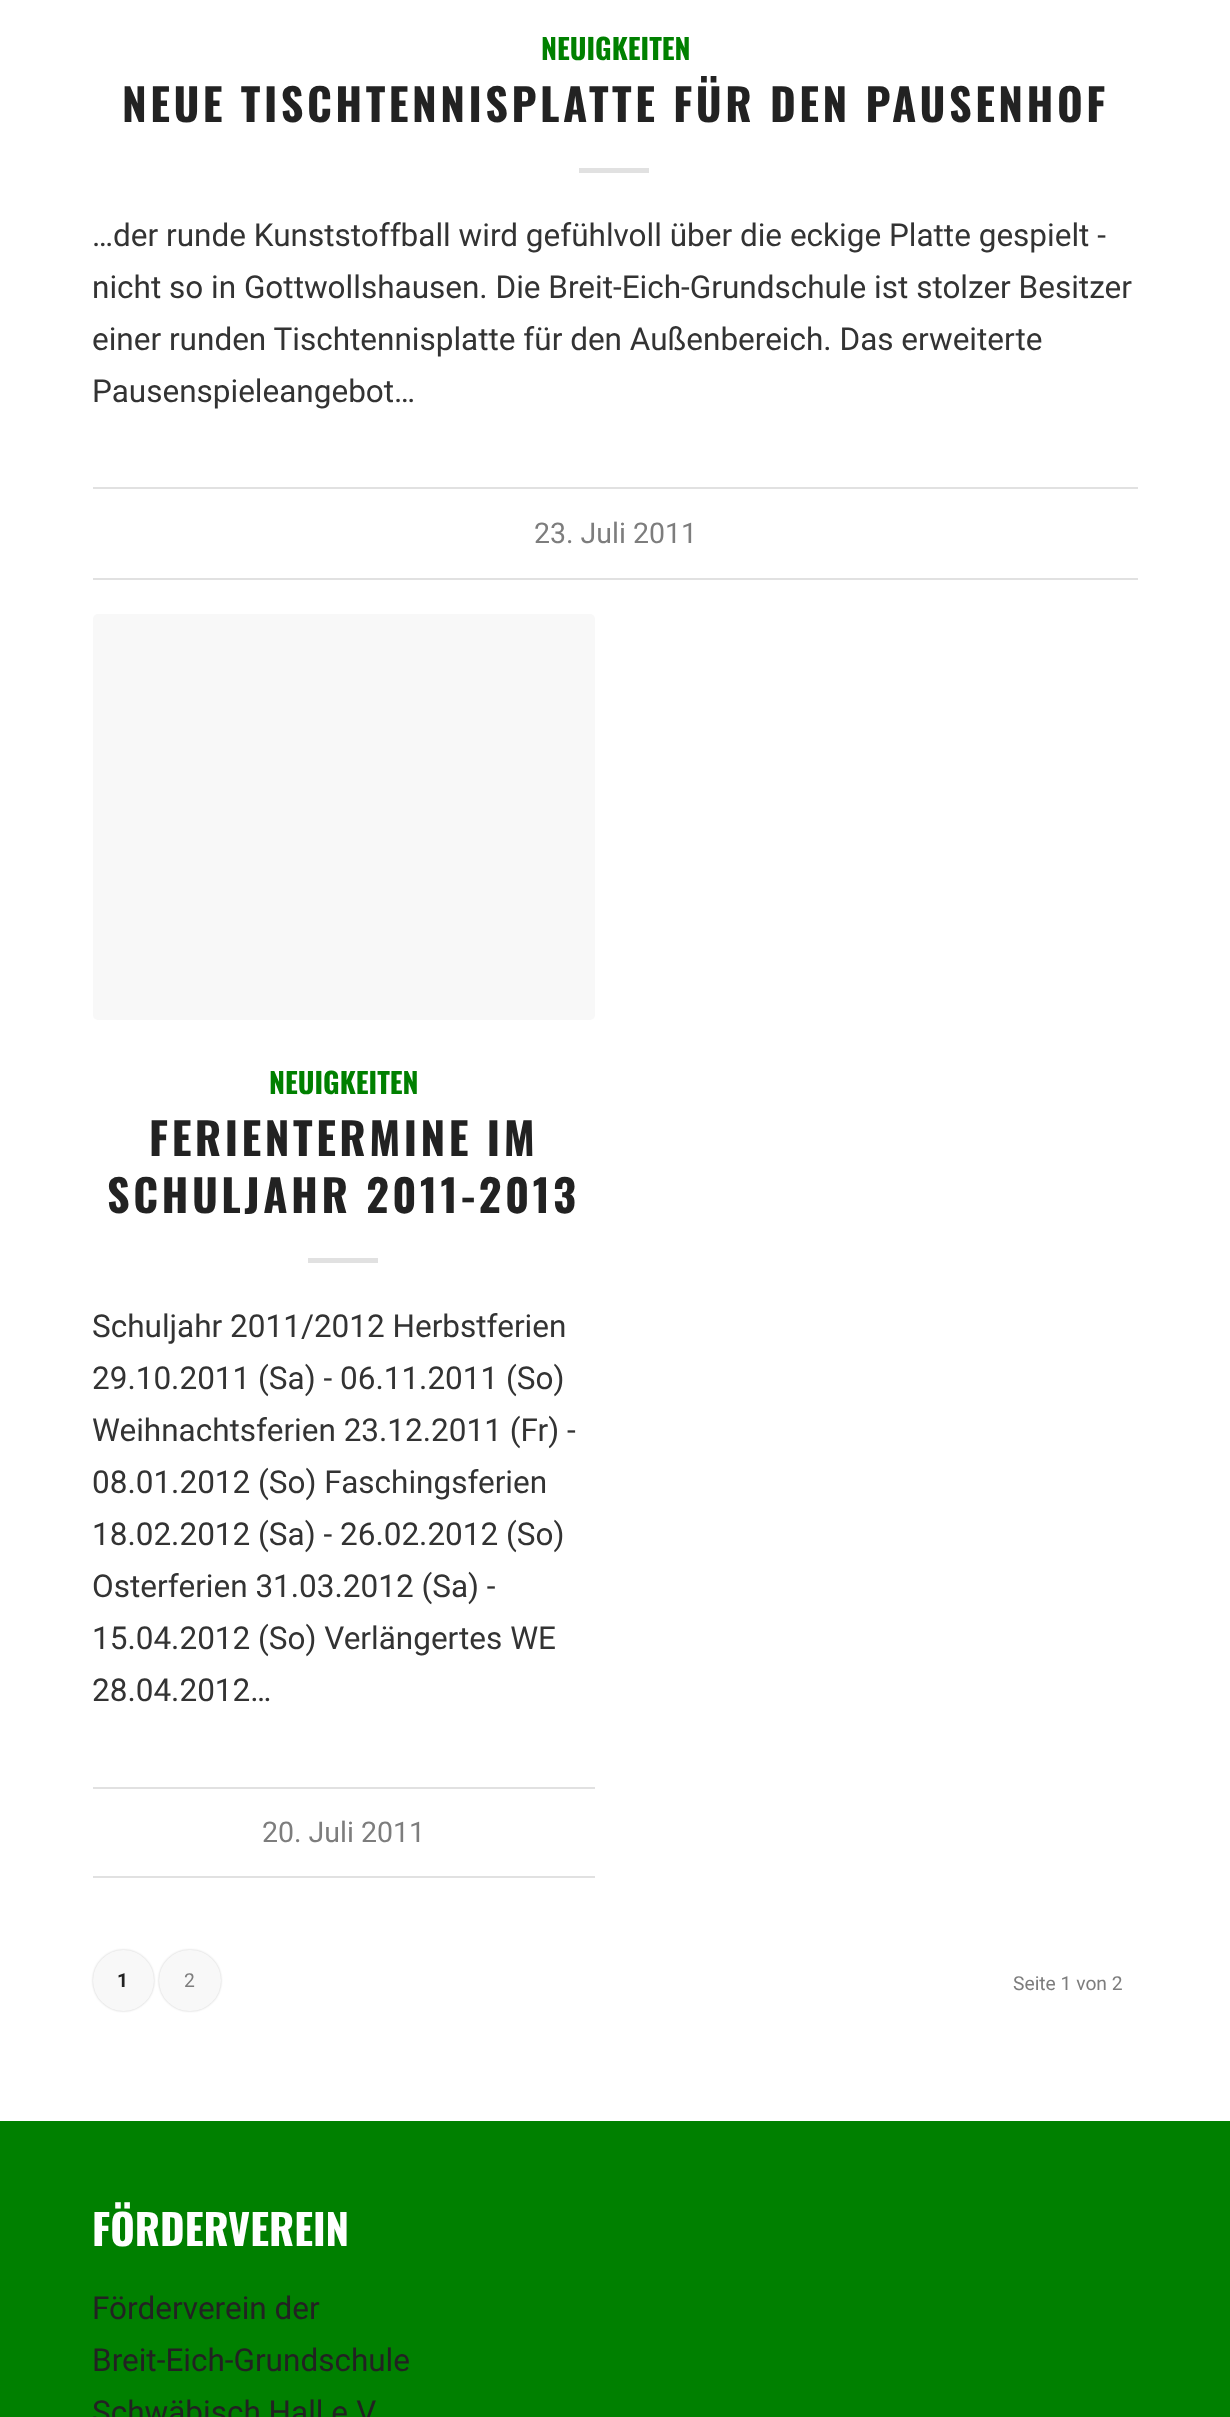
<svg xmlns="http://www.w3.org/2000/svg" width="1230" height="2417">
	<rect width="100%" height="100%" fill="#FFFFFF" />
	<text x="541" y="60" font-family="Oswald" font-size="28.5" font-weight="700" fill="#008000">NEUIGKEITEN</text>
	<text x="122" y="122" font-family="Oswald" font-size="44.1" font-weight="700" letter-spacing="3.5" fill="#222222">NEUE TISCHTENNISPLATTE FÜR DEN PAUSENHOF</text>
	<rect x="579" y="168" width="70" height="5" fill="#E1E1E1" />
	<g font-family="Roboto" font-size="31.5" fill="#333333">
		<text x="92" y="246">…der runde Kunststoffball wird gefühlvoll über die eckige Platte gespielt -</text>
		<text x="92" y="298">nicht so in Gottwollshausen. Die Breit-Eich-Grundschule ist stolzer Besitzer</text>
		<text x="92" y="350">einer runden Tischtennisplatte für den Außenbereich. Das erweiterte</text>
		<text x="92" y="402">Pausenspieleangebot…</text>
	</g>
	<rect x="93" y="487" width="1045" height="2" fill="#E1E1E1" />
	<rect x="93" y="578" width="1045" height="2" fill="#E1E1E1" />
	<text x="534" y="543" font-family="Roboto" font-size="28.5" fill="#7D7D7D">23. Juli 2011</text>
	<rect x="93" y="614" width="502" height="406" rx="5" fill="#F8F8F8" />
	<text x="269" y="1094" font-family="Oswald" font-size="28.5" font-weight="700" fill="#008000">NEUIGKEITEN</text>
	<g font-family="Oswald" font-size="44.1" font-weight="700" letter-spacing="3.5" fill="#222222">
		<text x="149" y="1156">FERIENTERMINE IM</text>
		<text x="107" y="1213">SCHULJAHR 2011-2013</text>
	</g>
	<rect x="308" y="1258" width="70" height="5" fill="#E1E1E1" />
	<g font-family="Roboto" font-size="31.5" fill="#333333">
		<text x="92" y="1337">Schuljahr 2011/2012 Herbstferien</text>
		<text x="92" y="1389">29.10.2011 (Sa) - 06.11.2011 (So)</text>
		<text x="92" y="1441">Weihnachtsferien 23.12.2011 (Fr) -</text>
		<text x="92" y="1493">08.01.2012 (So) Faschingsferien</text>
		<text x="92" y="1545">18.02.2012 (Sa) - 26.02.2012 (So)</text>
		<text x="92" y="1597">Osterferien 31.03.2012 (Sa) -</text>
		<text x="92" y="1649">15.04.2012 (So) Verlängertes WE</text>
		<text x="92" y="1701">28.04.2012…</text>
	</g>
	<rect x="93" y="1787" width="502" height="2" fill="#E1E1E1" />
	<rect x="93" y="1876" width="502" height="2" fill="#E1E1E1" />
	<text x="262" y="1842" font-family="Roboto" font-size="28.5" fill="#7D7D7D">20. Juli 2011</text>
	<rect x="93" y="1950" width="61" height="61" rx="30.5" fill="#000000" fill-opacity="0.2" filter="blur(1px)" />
	<circle cx="123.5" cy="1980.5" r="30.5" fill="#F8F8F8" />
	<text x="117" y="1987" font-family="Roboto" font-size="19.25" font-weight="700" fill="#222222">1</text>
	<rect x="159" y="1950" width="62" height="61" rx="30.5" fill="#000000" fill-opacity="0.2" filter="blur(1px)" />
	<rect x="159" y="1950" width="62" height="61" rx="30.5" fill="#F8F8F8" />
	<g font-family="Roboto" font-size="19.25" fill="#7D7D7D">
		<text x="184" y="1987">2</text>
		<text x="1013" y="1990">Seite 1 von 2</text>
	</g>
	<rect x="0" y="2121" width="1230" height="296" fill="#008000" />
	<text x="92" y="2246" font-family="Oswald" font-size="42" font-weight="700" fill="#FFFFFF">FÖRDERVEREIN</text>
	<g font-family="Roboto" font-size="31.5" fill="#222222">
		<text x="92" y="2319">Förderverein der</text>
		<text x="92" y="2371">Breit-Eich-Grundschule</text>
		<text x="92" y="2423">Schwäbisch Hall e.V.</text>
	</g>
</svg>
